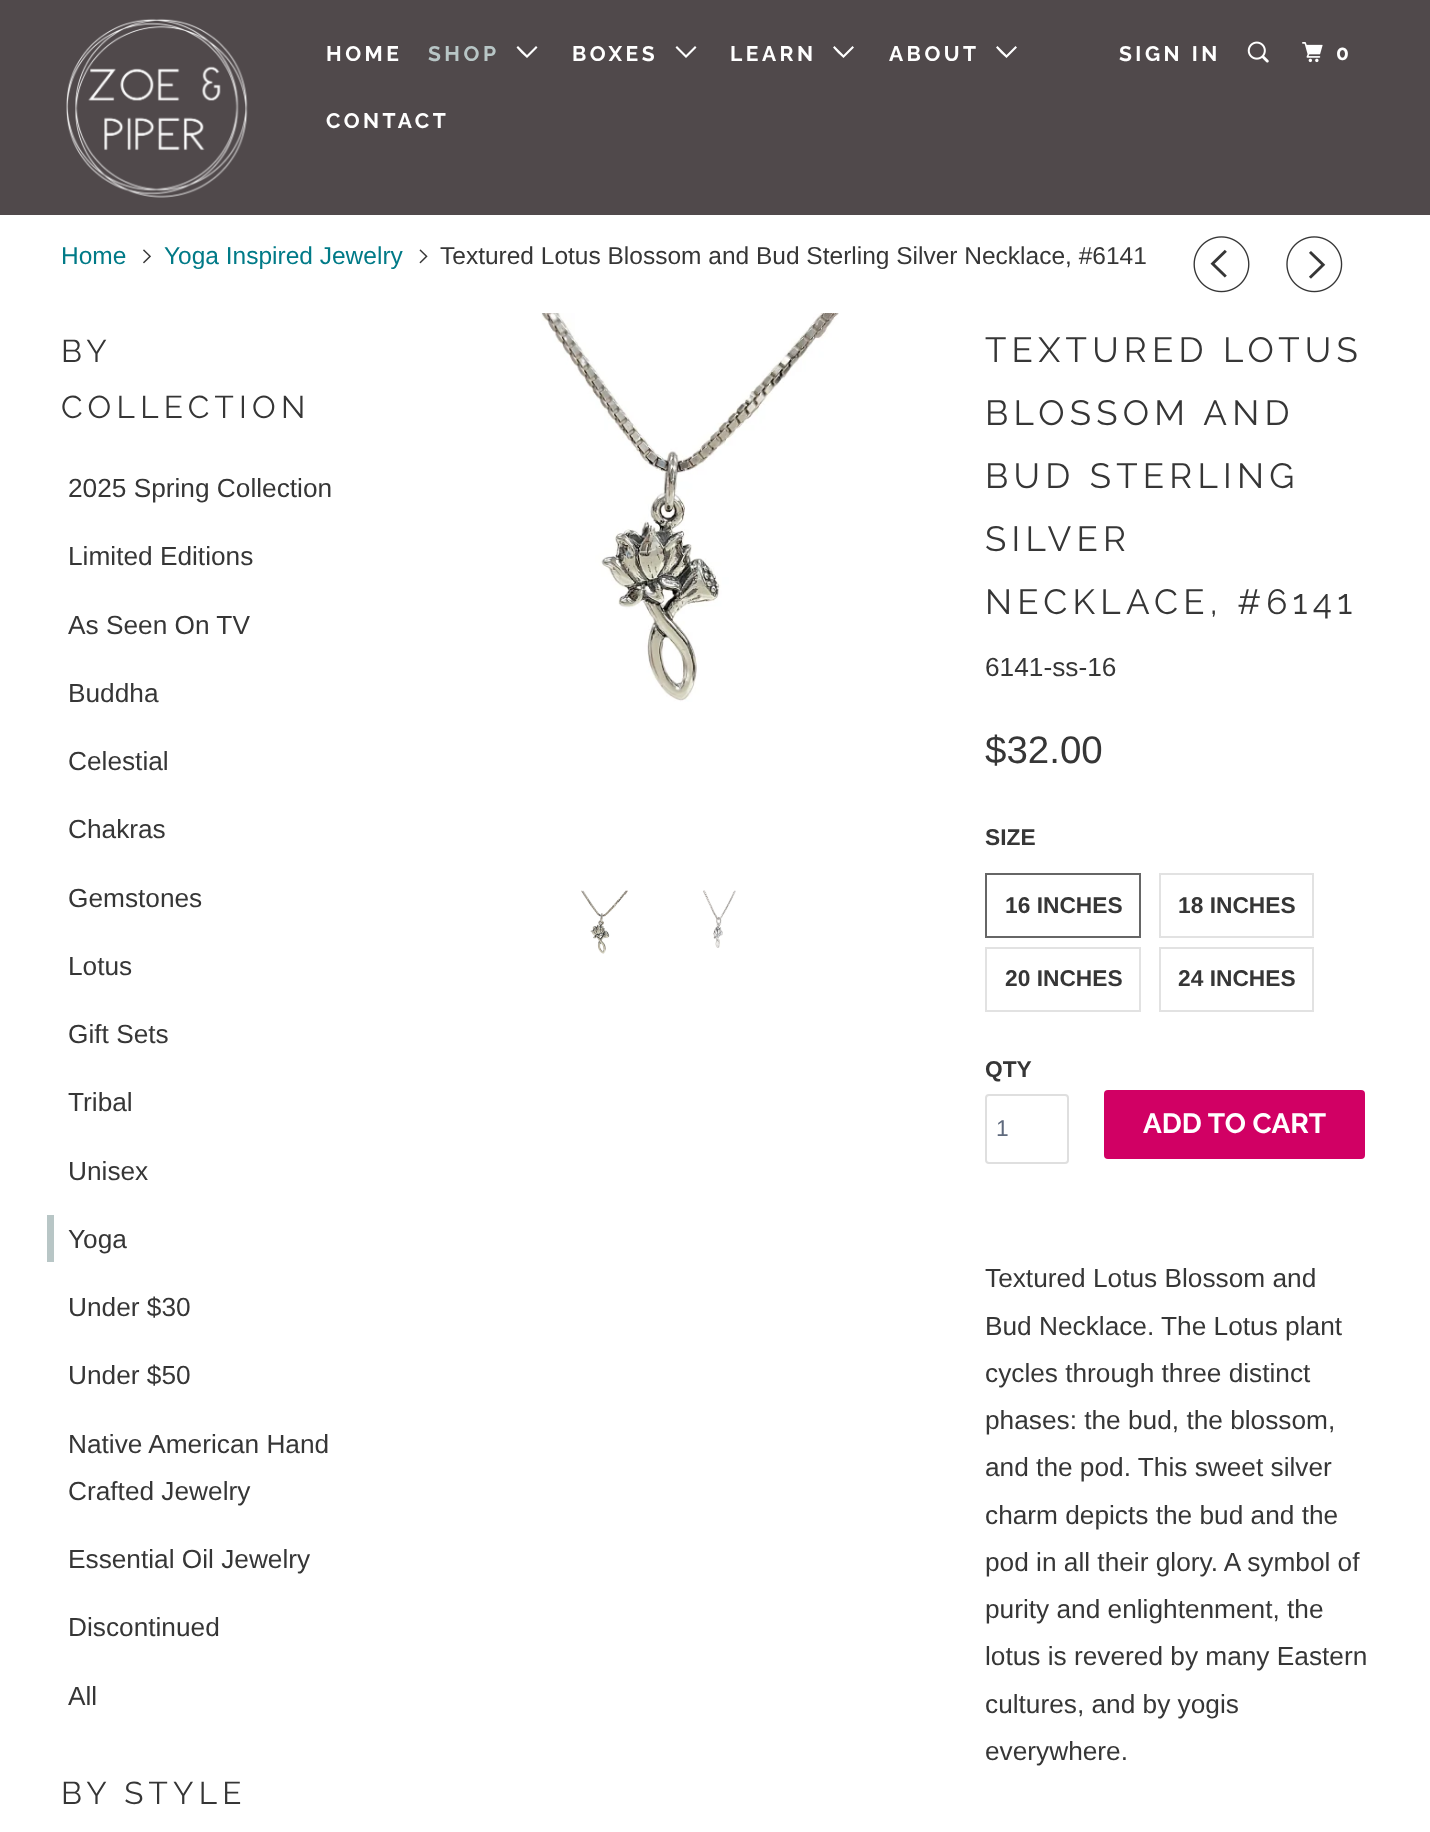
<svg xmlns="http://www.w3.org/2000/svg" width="1430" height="1832">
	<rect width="100%" height="100%" fill="#FFFFFF" />
	<rect x="0" y="0" width="1430" height="215" fill="#50494B" />
	<image x="66" y="18" width="182" height="180" href="assets/img1.png" />
	<text x="326" y="61" font-family="Raleway" font-size="21" font-weight="700" letter-spacing="3.5" fill="#FFFFFF">HOME</text>
	<text x="428" y="61" font-family="Raleway" font-size="21" font-weight="700" letter-spacing="3.5" fill="#B8C6C6">SHOP</text>
	<path d="M521.5 53L516.5 47.5L518 46L527 55L536 46L537.5 47.5L527 58Z" fill="#FFFFFF" />
	<text x="572" y="61" font-family="Raleway" font-size="21" font-weight="700" letter-spacing="3.5" fill="#FFFFFF">BOXES</text>
	<path d="M681 53L675.5 47.5L677 46L686 55L695 46L696.5 47.5L686 58Z" fill="#FFFFFF" />
	<text x="730" y="61" font-family="Raleway" font-size="21" font-weight="700" letter-spacing="3.5" fill="#FFFFFF">LEARN</text>
	<path d="M838 53L833 47.5L834.5 46L843.5 55L852.5 46L854 47.5L843.5 58Z" fill="#FFFFFF" />
	<text x="889" y="61" font-family="Raleway" font-size="21" font-weight="700" letter-spacing="3.5" fill="#FFFFFF">ABOUT</text>
	<path d="M1001 53L996 47.5L997.5 46L1006.5 55L1015.5 46L1017 47.5L1006.5 58Z" fill="#FFFFFF" />
	<g font-family="Raleway" font-size="21" font-weight="700" letter-spacing="3.5" fill="#FFFFFF">
		<text x="326" y="128">CONTACT</text>
		<text x="1119" y="61">SIGN IN</text>
	</g>
	<image x="1247" y="41" width="22" height="22" href="assets/img2.png" />
	<image x="1302" y="42" width="21" height="21" href="assets/img3.png" />
	<text x="1336" y="60" font-family="Raleway" font-size="21" font-weight="700" letter-spacing="3.5" fill="#FFFFFF">0</text>
	<text x="61" y="264" font-family="Liberation Sans" font-size="24.5" fill="#007A87">Home</text>
	<image x="143" y="249" width="8" height="15" href="assets/img4.png" />
	<text x="164" y="264" font-family="Liberation Sans" font-size="24.5" fill="#007A87">Yoga Inspired Jewelry</text>
	<image x="419" y="249" width="9" height="15" href="assets/img5.png" />
	<text x="440" y="264" font-family="Liberation Sans" font-size="24.5" fill="#363636">Textured Lotus Blossom and Bud Sterling Silver Necklace, #6141</text>
	<image x="1193" y="236" width="57" height="57" href="assets/img6.png" />
	<image x="1286" y="236" width="57" height="57" href="assets/img7.png" />
	<g font-family="Raleway" font-size="31.5" letter-spacing="5.25" fill="#363636">
		<text x="61" y="362">BY</text>
		<text x="61" y="418">COLLECTION</text>
	</g>
	<g font-family="Liberation Sans" font-size="26.25" fill="#363636">
		<text x="68" y="497">2025 Spring Collection</text>
		<text x="68" y="565">Limited Editions</text>
		<text x="68" y="634">As Seen On TV</text>
		<text x="68" y="702">Buddha</text>
		<text x="68" y="770">Celestial</text>
		<text x="68" y="838">Chakras</text>
		<text x="68" y="907">Gemstones</text>
		<text x="68" y="975">Lotus</text>
		<text x="68" y="1043">Gift Sets</text>
		<text x="68" y="1111">Tribal</text>
		<text x="68" y="1180">Unisex</text>
	</g>
	<rect x="47" y="1215" width="7" height="47" fill="#B8C6C6" />
	<g font-family="Liberation Sans" font-size="26.25" fill="#363636">
		<text x="68" y="1248">Yoga</text>
		<text x="68" y="1316">Under $30</text>
		<text x="68" y="1384">Under $50</text>
		<text x="68" y="1453">Native American Hand</text>
		<text x="68" y="1500">Crafted Jewelry</text>
		<text x="68" y="1568">Essential Oil Jewelry</text>
		<text x="68" y="1636">Discontinued</text>
		<text x="68" y="1705">All</text>
	</g>
	<text x="61" y="1804" font-family="Raleway" font-size="31.5" letter-spacing="5.25" fill="#363636">BY STYLE</text>
	<image x="541" y="313" width="298" height="389" href="assets/img8.png" />
	<image x="581" y="890" width="47" height="64" href="assets/img9.png" />
	<image x="703" y="890" width="33" height="58" href="assets/img10.png" />
	<g font-family="Raleway" font-size="35" letter-spacing="5.25" fill="#363636">
		<text x="985" y="362">TEXTURED LOTUS</text>
		<text x="985" y="425">BLOSSOM AND</text>
		<text x="985" y="488">BUD STERLING</text>
		<text x="985" y="551">SILVER</text>
		<text x="985" y="614">NECKLACE, #6141</text>
	</g>
	<text x="985" y="676" font-family="Liberation Sans" font-size="26.25" fill="#363636">6141-ss-16</text>
	<text x="985" y="763" font-family="Liberation Sans" font-size="38.5" fill="#363636">$32.00</text>
	<text x="985" y="845" font-family="Liberation Sans" font-size="22.75" font-weight="700" fill="#363636">SIZE</text>
	<rect x="986" y="874" width="154" height="63" fill="none" stroke="#666666" stroke-width="2" />
	<text x="1005" y="913" font-family="Liberation Sans" font-size="22.75" font-weight="700" fill="#363636">16 INCHES</text>
	<rect x="1160" y="874" width="153" height="63" fill="none" stroke="#E2E2E2" stroke-width="2" />
	<text x="1178" y="913" font-family="Liberation Sans" font-size="22.75" font-weight="700" fill="#363636">18 INCHES</text>
	<rect x="986" y="948" width="154" height="63" fill="none" stroke="#E2E2E2" stroke-width="2" />
	<text x="1005" y="986" font-family="Liberation Sans" font-size="22.75" font-weight="700" fill="#363636">20 INCHES</text>
	<rect x="1160" y="948" width="153" height="63" fill="none" stroke="#E2E2E2" stroke-width="2" />
	<g font-family="Liberation Sans" font-size="22.75" font-weight="700" fill="#363636">
		<text x="1178" y="986">24 INCHES</text>
		<text x="985" y="1077">QTY</text>
	</g>
	<rect x="986" y="1095" width="82" height="68" rx="3" fill="none" stroke="#DFDFDF" stroke-width="2" />
	<text x="996" y="1136" font-family="Liberation Sans" font-size="22.75" fill="#5F6A7D">1</text>
	<rect x="1104" y="1090" width="261" height="69" rx="4" fill="#D10064" />
	<text x="1143" y="1133" font-family="Raleway" font-size="28" font-weight="700" fill="#FFFFFF">ADD TO CART</text>
	<g font-family="Liberation Sans" font-size="26.25" fill="#363636">
		<text x="985" y="1287">Textured Lotus Blossom and</text>
		<text x="985" y="1335">Bud Necklace. The Lotus plant</text>
		<text x="985" y="1382">cycles through three distinct</text>
		<text x="985" y="1429">phases: the bud, the blossom,</text>
		<text x="985" y="1476">and the pod. This sweet silver</text>
		<text x="985" y="1524">charm depicts the bud and the</text>
		<text x="985" y="1571">pod in all their glory. A symbol of</text>
		<text x="985" y="1618">purity and enlightenment, the</text>
		<text x="985" y="1665">lotus is revered by many Eastern</text>
		<text x="985" y="1713">cultures, and by yogis</text>
		<text x="985" y="1760">everywhere.</text>
	</g>
</svg>
